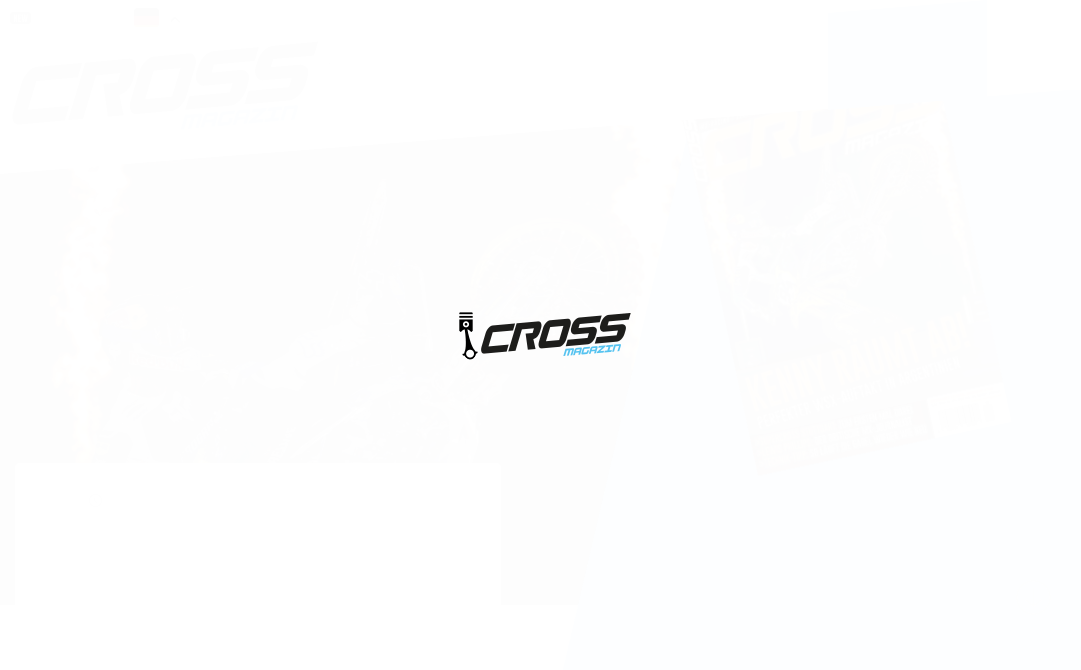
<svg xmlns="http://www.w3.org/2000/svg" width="1081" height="670">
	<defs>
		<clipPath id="clip1"><rect x="134" y="8" width="25" height="19" rx="3" /></clipPath>
	</defs>
	<rect width="100%" height="100%" fill="#FFFFFF" />
	<image x="0" y="90" width="1081" height="515" href="assets/img5.png" />
	<path d="M542 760H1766V90H698Z" fill="#FDFEFF" fill-opacity="0.95" />
	<image x="682" y="100" width="331" height="377" href="assets/img6.png" />
	<path d="M0-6L1081-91V89L0 174Z" fill="#FFFFFF" />
	<image x="12" y="23" width="333" height="107" href="assets/img4.png" />
	<image x="10" y="12" width="21" height="12" href="assets/img1.png" />
	<g clip-path="url(#clip1)">
		<rect x="134" y="25" width="25" height="2" fill="#FFFEFC" />
	</g>
	<path d="M137 8H156C157.5 8 159 9.5 159 11V16H134V11C134 9.5 135.5 8 137 8Z" fill="#FCFCFC" />
	<rect x="134" y="16" width="25" height="9" fill="#FFFCFC" />
	<image x="171" y="16" width="10" height="7" href="assets/img2.png" />
	<image x="782" y="10" width="30" height="15" href="assets/img3.png" />
	<path d="M828 13L987 0V97L828 110Z" fill="#FDFEFF" />
	<path d="M20 463H496C499 463 501 465 501 468V670H15V468C15 465 17 463 20 463Z" fill="#FFFFFF" />
	<image x="89" y="494" width="13" height="13" href="assets/img7.png" />
	<image x="1016" y="580" width="35" height="35" href="assets/img8.png" />
	<image x="459" y="312" width="19" height="48" href="assets/img9.png" />
	<image x="481" y="313" width="150" height="43" href="assets/img10.png" />
</svg>
